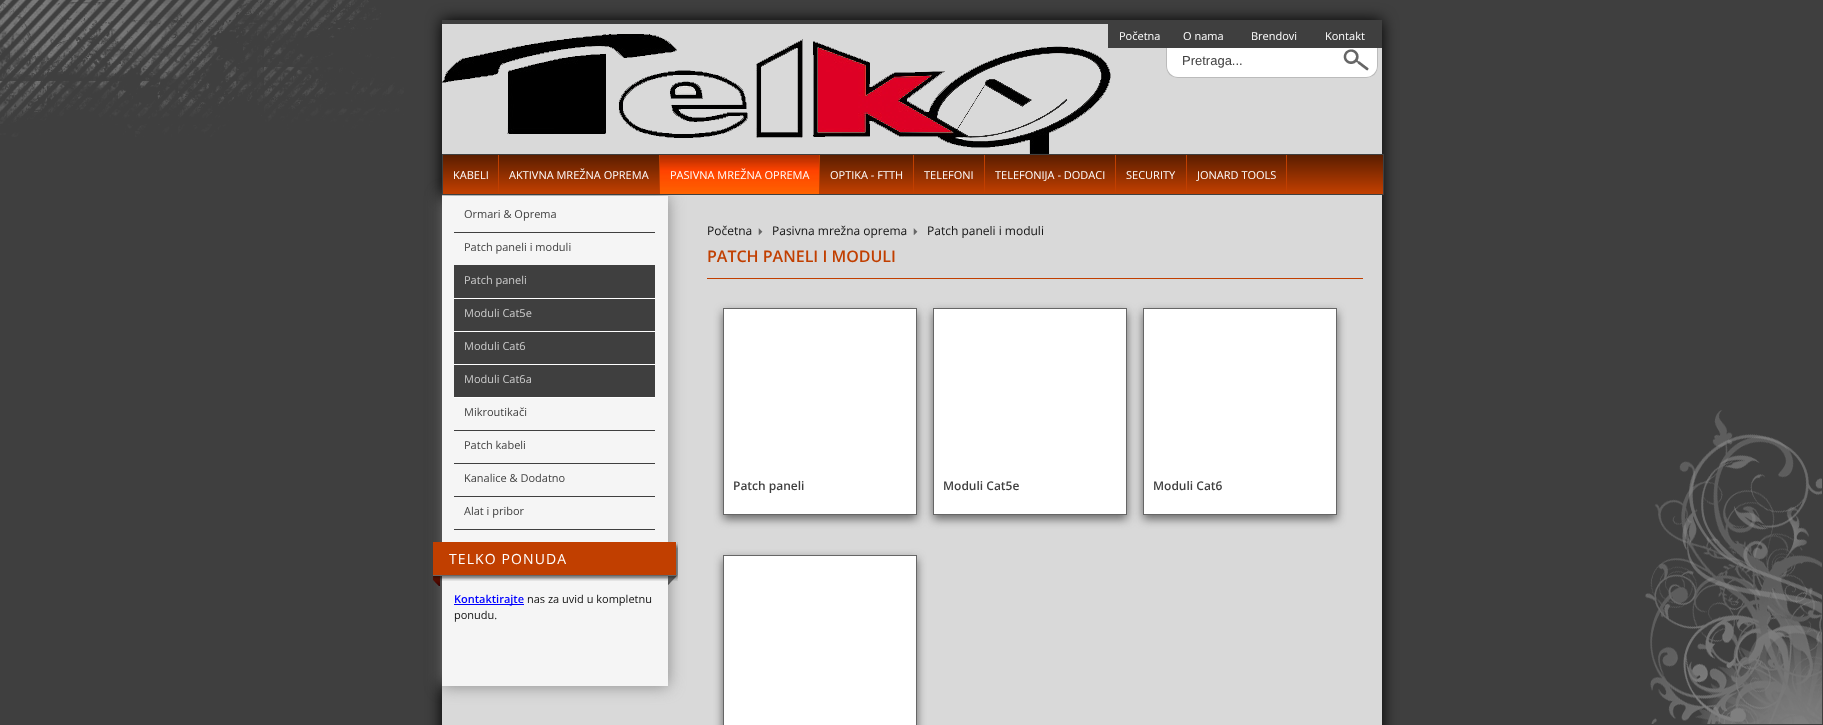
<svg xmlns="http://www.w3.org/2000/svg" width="1823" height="725">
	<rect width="100%" height="100%" fill="#3F3F3F" />
	<image x="0" y="0" width="404" height="137" href="assets/img1.png" />
	<rect x="442" y="20" width="940" height="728" fill="#000000" filter="blur(7.5px)" />
	<rect x="442" y="24" width="940" height="701" fill="#D9D9D9" />
	<rect x="442" y="20" width="940" height="4" fill="#3F3F3F" />
	<image x="442" y="34" width="669" height="120" href="assets/img2.png" />
	<path d="M1166 44H1378V66C1378 72.5 1372.5 78 1366 78H1178C1171.5 78 1166 72.5 1166 66Z" fill="#FFFFFF" />
	<path d="M1166 44H1378V66C1378 73 1373 78 1366 78H1178C1171 78 1166 73 1166 66ZM1167 44H1377V66C1377 72 1372 77 1366 77H1178C1172 77 1167 72 1167 66Z" fill="#BBBBBB" fill-rule="evenodd" />
	<rect x="1108" y="24" width="274" height="24" fill="#3F3F3F" />
	<g font-family="Open Sans" font-size="11" fill="#FFFFFF">
		<text x="1119" y="40">Početna</text>
		<text x="1183" y="40">O nama</text>
		<text x="1251" y="40">Brendovi</text>
		<text x="1325" y="40">Kontakt</text>
	</g>
	<text x="1182" y="65" font-family="Liberation Sans" font-size="13" fill="#3F3F3F">Pretraga...</text>
	<image x="1343" y="49" width="26" height="22" href="assets/img3.png" />
	<rect x="442" y="196" width="226" height="490" fill="#888888" filter="blur(8px)" />
	<image x="443" y="155" width="940" height="39" href="assets/img4.png" />
	<rect x="442.5" y="154.5" width="941" height="40" fill="none" stroke="#3F3F3F" />
	<rect x="498" y="155" width="1" height="39" fill="#C13F00" />
	<text x="453" y="179" font-family="Open Sans" font-size="11" fill="#FFFFFF">KABELI</text>
	<rect x="659" y="155" width="1" height="39" fill="#C13F00" />
	<text x="509" y="179" font-family="Open Sans" font-size="11" fill="#FFFFFF">AKTIVNA MREŽNA OPREMA</text>
	<image x="660" y="155" width="159" height="39" href="assets/img5.png" />
	<rect x="819" y="155" width="1" height="39" fill="#C13F00" />
	<text x="670" y="179" font-family="Open Sans" font-size="11" fill="#FFFFFF">PASIVNA MREŽNA OPREMA</text>
	<rect x="913" y="155" width="1" height="39" fill="#C13F00" />
	<text x="830" y="179" font-family="Open Sans" font-size="11" fill="#FFFFFF">OPTIKA - FTTH</text>
	<rect x="984" y="155" width="1" height="39" fill="#C13F00" />
	<text x="924" y="179" font-family="Open Sans" font-size="11" fill="#FFFFFF">TELEFONI</text>
	<rect x="1115" y="155" width="1" height="39" fill="#C13F00" />
	<text x="995" y="179" font-family="Open Sans" font-size="11" fill="#FFFFFF">TELEFONIJA - DODACI</text>
	<rect x="1186" y="155" width="1" height="39" fill="#C13F00" />
	<text x="1126" y="179" font-family="Open Sans" font-size="11" fill="#FFFFFF">SECURITY</text>
	<rect x="1286" y="155" width="1" height="39" fill="#C13F00" />
	<text x="1197" y="179" font-family="Open Sans" font-size="11" fill="#FFFFFF">JONARD TOOLS</text>
	<rect x="442" y="196" width="226" height="490" fill="#F5F5F5" />
	<rect x="454" y="232" width="201" height="1" fill="#3F3F3F" />
	<text x="464" y="218" font-family="Open Sans" font-size="11" fill="#3F3F3F">Ormari &amp; Oprema</text>
	<rect x="454" y="265" width="201" height="33" fill="#3F3F3F" />
	<text x="464" y="251" font-family="Open Sans" font-size="11" fill="#3F3F3F">Patch paneli i moduli</text>
	<rect x="454" y="298" width="201" height="1" fill="#FFFFFF" />
	<text x="464" y="284" font-family="Open Sans" font-size="11" fill="#CCCCCC">Patch paneli</text>
	<rect x="454" y="299" width="201" height="32" fill="#3F3F3F" />
	<rect x="454" y="331" width="201" height="1" fill="#FFFFFF" />
	<text x="464" y="317" font-family="Open Sans" font-size="11" fill="#CCCCCC">Moduli Cat5e</text>
	<rect x="454" y="332" width="201" height="32" fill="#3F3F3F" />
	<rect x="454" y="364" width="201" height="1" fill="#FFFFFF" />
	<text x="464" y="350" font-family="Open Sans" font-size="11" fill="#CCCCCC">Moduli Cat6</text>
	<rect x="454" y="365" width="201" height="32" fill="#3F3F3F" />
	<rect x="454" y="397" width="201" height="1" fill="#FFFFFF" />
	<text x="464" y="383" font-family="Open Sans" font-size="11" fill="#CCCCCC">Moduli Cat6a</text>
	<rect x="454" y="430" width="201" height="1" fill="#3F3F3F" />
	<text x="464" y="416" font-family="Open Sans" font-size="11" fill="#3F3F3F">Mikroutikači</text>
	<rect x="454" y="463" width="201" height="1" fill="#3F3F3F" />
	<text x="464" y="449" font-family="Open Sans" font-size="11" fill="#3F3F3F">Patch kabeli</text>
	<rect x="454" y="496" width="201" height="1" fill="#3F3F3F" />
	<text x="464" y="482" font-family="Open Sans" font-size="11" fill="#3F3F3F">Kanalice &amp; Dodatno</text>
	<rect x="454" y="529" width="201" height="1" fill="#3F3F3F" />
	<text x="464" y="515" font-family="Open Sans" font-size="11" fill="#3F3F3F">Alat i pribor</text>
	<image x="433" y="542" width="235" height="44" href="assets/img6.png" />
	<image x="668" y="542" width="10" height="43" href="assets/img7.png" />
	<text x="449" y="564" font-family="Open Sans" font-size="14" letter-spacing="1.1" fill="#FFFFFF">TELKO PONUDA</text>
	<rect x="454" y="604" width="70" height="1" fill="#0000FF" />
	<text x="454" y="603" font-family="Open Sans" font-size="11" font-weight="600" fill="#0000FF">Kontaktirajte</text>
	<g font-family="Open Sans" font-size="11" fill="#111111">
		<text x="527" y="603">nas za uvid u kompletnu</text>
		<text x="454" y="619">ponudu.</text>
	</g>
	<text x="707" y="235" font-family="Open Sans" font-size="12" fill="#111111">Početna</text>
	<image x="758" y="228" width="5" height="7" href="assets/img8.png" />
	<text x="772" y="235" font-family="Open Sans" font-size="12" fill="#111111">Pasivna mrežna oprema</text>
	<image x="913" y="228" width="5" height="7" href="assets/img8.png" />
	<text x="927" y="235" font-family="Open Sans" font-size="12" fill="#111111">Patch paneli i moduli</text>
	<rect x="707" y="278" width="656" height="1" fill="#C13F00" />
	<text x="707" y="262" font-family="Open Sans" font-size="16" font-weight="600" fill="#C13F00">PATCH PANELI I MODULI</text>
	<rect x="723" y="312" width="194" height="207" fill="#666666" filter="blur(5px)" />
	<rect x="723.5" y="308.5" width="193" height="206" fill="#FFFFFF" stroke="#666666" />
	<text x="733" y="490" font-family="Open Sans" font-size="12" font-weight="600" fill="#3F3F3F">Patch paneli</text>
	<rect x="933" y="312" width="194" height="207" fill="#666666" filter="blur(5px)" />
	<rect x="933.5" y="308.5" width="193" height="206" fill="#FFFFFF" stroke="#666666" />
	<text x="943" y="490" font-family="Open Sans" font-size="12" font-weight="600" fill="#3F3F3F">Moduli Cat5e</text>
	<rect x="1143" y="312" width="194" height="207" fill="#666666" filter="blur(5px)" />
	<rect x="1143.5" y="308.5" width="193" height="206" fill="#FFFFFF" stroke="#666666" />
	<text x="1153" y="490" font-family="Open Sans" font-size="12" font-weight="600" fill="#3F3F3F">Moduli Cat6</text>
	<rect x="723" y="559" width="194" height="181" fill="#666666" filter="blur(5px)" />
	<rect x="723.5" y="555.5" width="193" height="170" fill="#FFFFFF" stroke="#666666" />
	<image x="1645" y="410" width="177" height="314" href="assets/img9.png" />
</svg>
